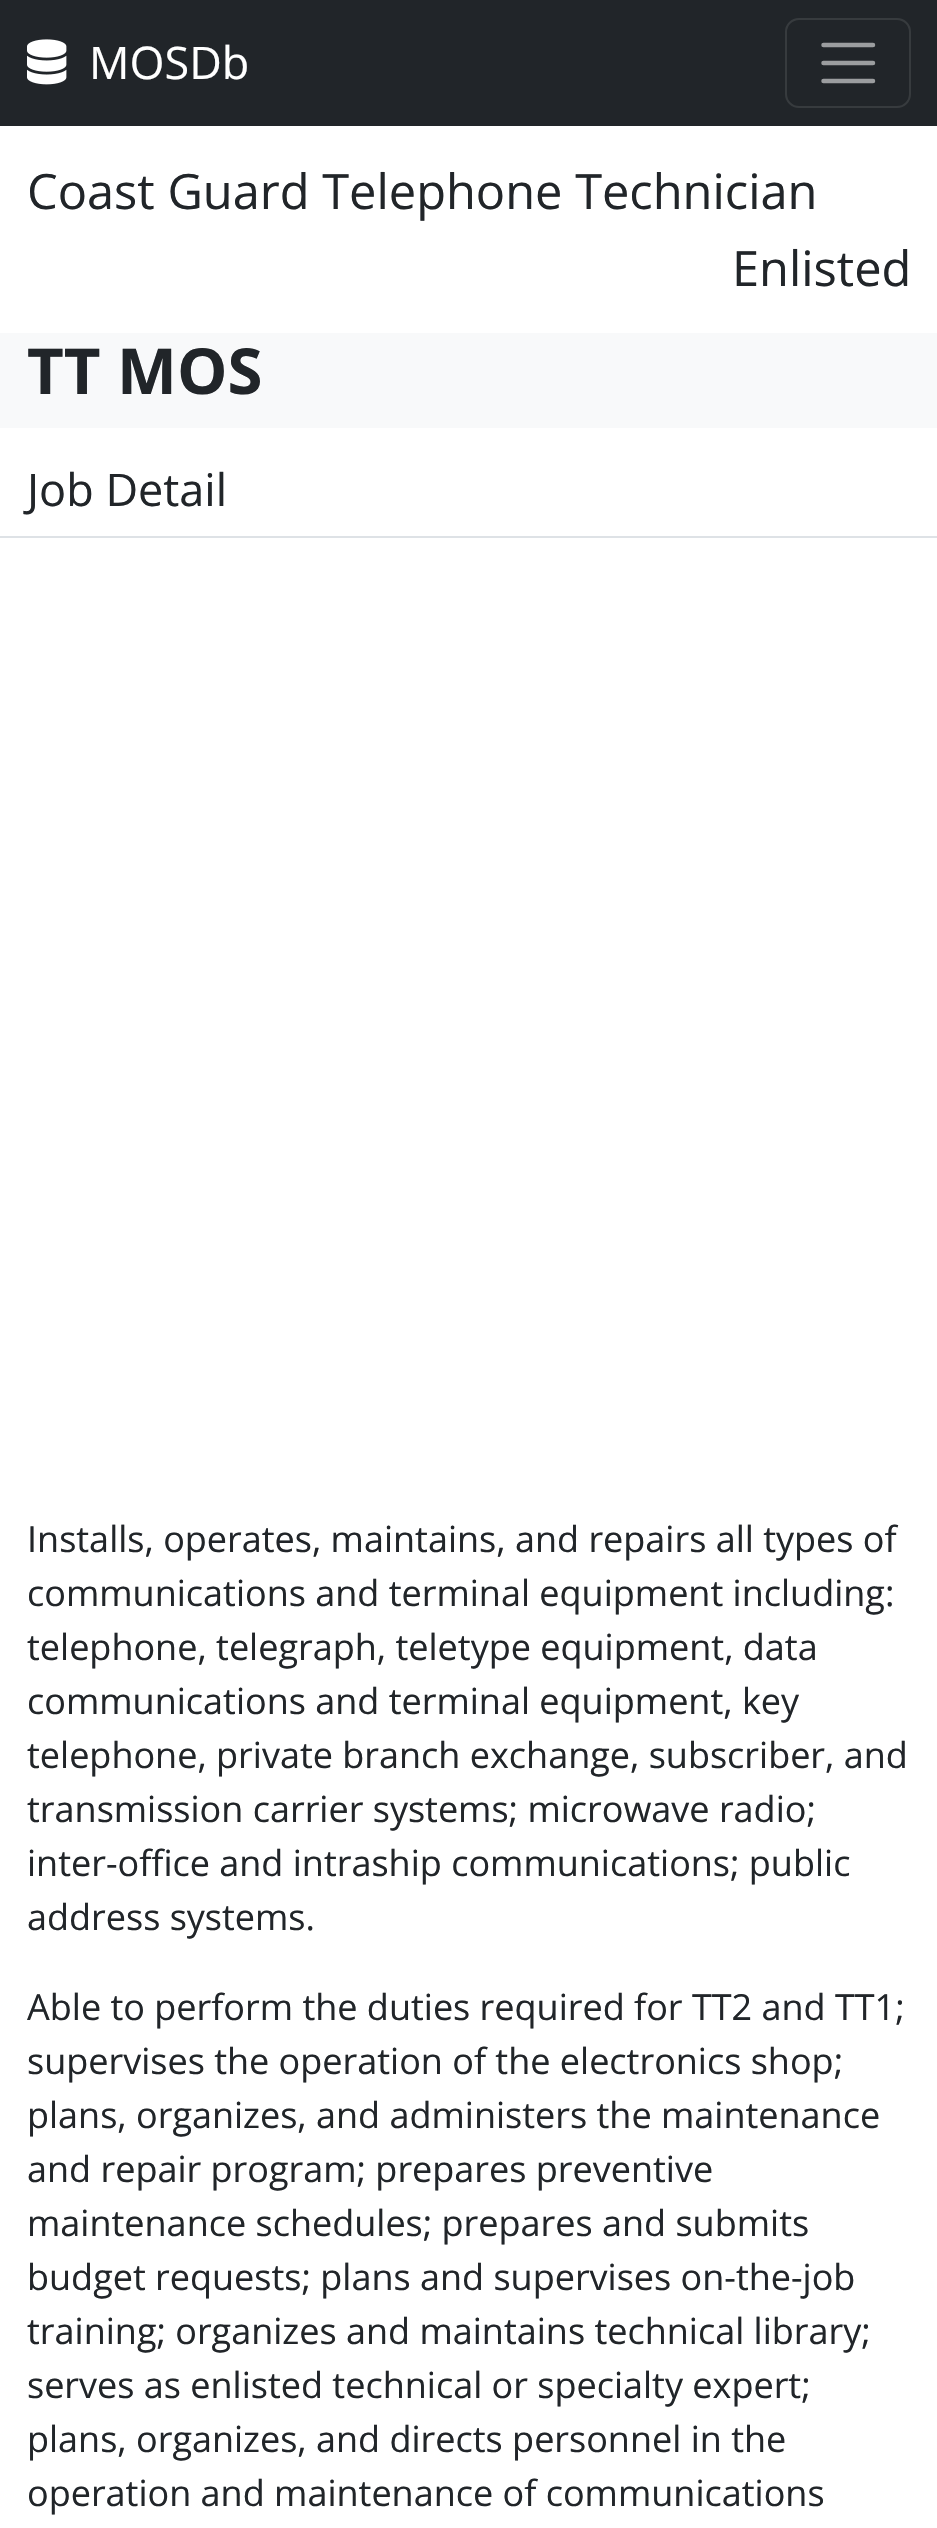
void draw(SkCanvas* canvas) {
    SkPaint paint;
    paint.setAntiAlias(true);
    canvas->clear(0xFFFFFFFF);
    paint.setColor(0xFF212529);
    canvas->drawRect(SkRect::MakeXYWH(0, 0, 937, 126), paint);
    canvas->drawImageRect(SkImages::DeferredFromEncodedData(SkData::MakeFromFileName("img1.png")), SkRect::MakeXYWH(27, 39, 40, 46), SkSamplingOptions());
    SkFont font1(fontMgr->matchFamilyStyle("Open Sans", SkFontStyle::Normal()), 45);
    font1.setSubpixel(true);
    paint.setColor(0xFFFFFFFF);
    canvas->drawString("MOSDb", 89, 79, font1, paint);
    paint.setStyle(SkPaint::kStroke_Style);
    paint.setStrokeWidth(2);
    paint.setColor(0xFF373B3E);
    canvas->drawRoundRect(SkRect::MakeXYWH(786, 19, 124, 88), 13, 13, paint);
    paint.setStrokeWidth(4.5f);
    paint.setStrokeCap(SkPaint::kRound_Cap);
    paint.setColor(0xFF9B9D9F);
    canvas->drawPath(SkPathBuilder().moveTo(823.5f, 45).lineTo(873, 45).moveTo(823.5f, 63).lineTo(873, 63).moveTo(823.5f, 81).lineTo(873, 81).detach(), paint);
    SkFont font2(fontMgr->matchFamilyStyle("Open Sans", SkFontStyle::Normal()), 48.75f);
    font2.setSubpixel(true);
    paint.setStyle(SkPaint::kFill_Style);
    paint.setColor(0xFF212529);
    canvas->drawString("Coast Guard Telephone Technician", 27, 209, font2, paint);
    canvas->drawString("Enlisted", 732, 286, font2, paint);
    paint.setColor(0xFFF8F9FA);
    canvas->drawRect(SkRect::MakeXYWH(0, 333, 937, 95), paint);
    SkFont font3(fontMgr->matchFamilyStyle("Open Sans", SkFontStyle::Bold()), 63.5f);
    font3.setSubpixel(true);
    paint.setColor(0xFF212529);
    canvas->drawString("TT MOS", 27, 394, font3, paint);
    paint.setColor(0xFFDEE2E6);
    canvas->drawRect(SkRect::MakeXYWH(0, 536, 937, 2), paint);
    paint.setColor(0xFF212529);
    canvas->drawString("Job Detail", 27, 506, font1, paint);
    SkFont font4(fontMgr->matchFamilyStyle("Open Sans", SkFontStyle::Normal()), 36);
    font4.setSubpixel(true);
    canvas->drawString("Installs, operates, maintains, and repairs all types of", 27, 1552, font4, paint);
    canvas->drawString("communications and terminal equipment including:", 27, 1606, font4, paint);
    canvas->drawString("telephone, telegraph, teletype equipment, data", 27, 1660, font4, paint);
    canvas->drawString("communications and terminal equipment, key", 27, 1714, font4, paint);
    canvas->drawString("telephone, private branch exchange, subscriber, and", 27, 1768, font4, paint);
    canvas->drawString("transmission carrier systems; microwave radio;", 27, 1822, font4, paint);
    canvas->drawString("inter-office and intraship communications; public", 27, 1876, font4, paint);
    canvas->drawString("address systems.", 27, 1930, font4, paint);
    canvas->drawString("Able to perform the duties required for TT2 and TT1;", 27, 2020, font4, paint);
    canvas->drawString("supervises the operation of the electronics shop;", 27, 2074, font4, paint);
    canvas->drawString("plans, organizes, and administers the maintenance", 27, 2128, font4, paint);
    canvas->drawString("and repair program; prepares preventive", 27, 2182, font4, paint);
    canvas->drawString("maintenance schedules; prepares and submits", 27, 2236, font4, paint);
    canvas->drawString("budget requests; plans and supervises on-the-job", 27, 2290, font4, paint);
    canvas->drawString("training; organizes and maintains technical library;", 27, 2344, font4, paint);
    canvas->drawString("serves as enlisted technical or specialty expert;", 27, 2398, font4, paint);
    canvas->drawString("plans, organizes, and directs personnel in the", 27, 2452, font4, paint);
    canvas->drawString("operation and maintenance of communications", 27, 2506, font4, paint);
}
